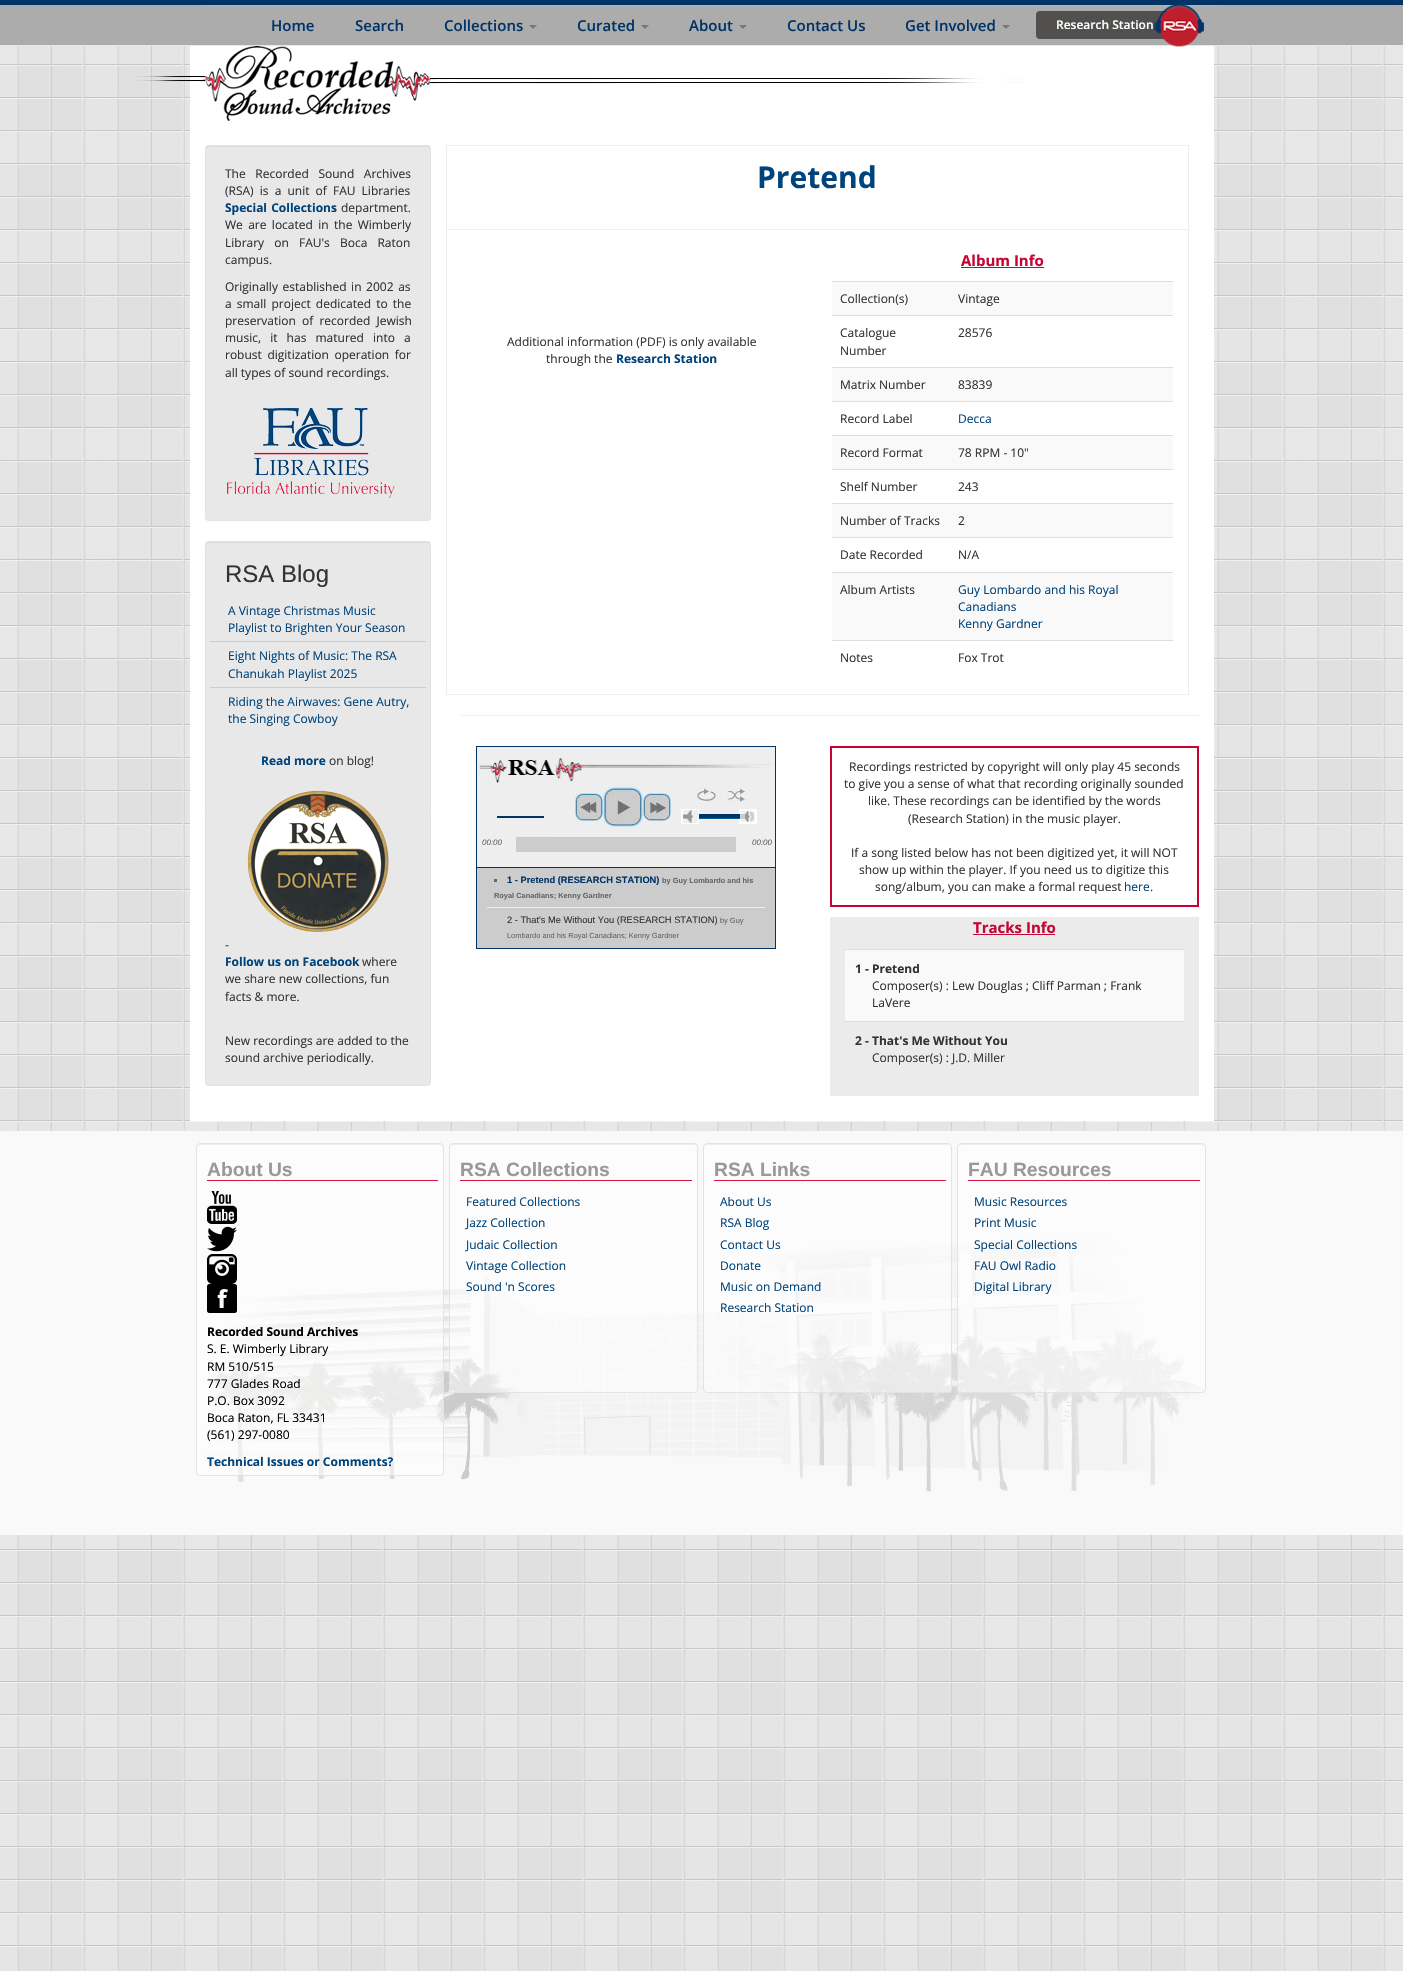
void draw(SkCanvas* canvas) {
    SkPaint paint;
    paint.setAntiAlias(true);
    auto spacedText = [&](const char* s, float x, float y, const SkFont& font, const SkPaint& ink, float letter, float word) {
        std::vector<SkGlyphID> glyphs(font.countText(s, strlen(s), SkTextEncoding::kUTF8));
        std::vector<float> xs(glyphs.size());
        font.textToGlyphs(s, strlen(s), SkTextEncoding::kUTF8, glyphs);
        font.getXPos(glyphs, xs, x);
        float extra = 0;
        for (size_t i = 0; i < glyphs.size(); i++) {
            xs[i] += extra;
            extra += letter + word * (glyphs[i] == font.unicharToGlyph(' '));
        }
        canvas->drawTextBlob(SkTextBlob::MakeFromPosHGlyphs(glyphs, xs, y, font), 0, 0, ink);
    };
    canvas->clear(0xFFFFFFFF);
    canvas->drawImageRect(SkImages::DeferredFromEncodedData(SkData::MakeFromFileName("img1.png")), SkRect::MakeXYWH(0, 46, 1403, 1925), SkSamplingOptions());
    paint.setColor(0xFFACACAC);
    canvas->drawRect(SkRect::MakeXYWH(0, 5, 1403, 40), paint);
    paint.setColor(0xFF003366);
    canvas->drawRect(SkRect::MakeXYWH(0, 0, 1403, 5), paint);
    paint.setColor(0xFFE7E7E7);
    canvas->drawRect(SkRect::MakeXYWH(0, 45, 1403, 1), paint);
    paint.setColor(0xFFB4B4B4);
    canvas->drawRect(SkRect::MakeXYWH(205, 5, 1014, 1), paint);
    SkFont font1(fontMgr->matchFamilyStyle("Open Sans", SkFontStyle(600, SkFontStyle::kNormal_Width, SkFontStyle::kUpright_Slant)), 15);
    font1.setSubpixel(true);
    paint.setColor(0xFF003366);
    canvas->drawString("Home", 271, 31, font1, paint);
    canvas->drawString("Search", 355, 31, font1, paint);
    canvas->drawString("Collections", 444, 31, font1, paint);
    paint.setColor(0xFF777777);
    canvas->drawPath(SkPathBuilder().moveTo(529, 25).lineTo(537, 25).lineTo(533, 29).close().detach(), paint);
    paint.setColor(0xFF003366);
    canvas->drawString("Curated", 577, 31, font1, paint);
    paint.setColor(0xFF777777);
    canvas->drawPath(SkPathBuilder().moveTo(641, 25).lineTo(649, 25).lineTo(645, 29).close().detach(), paint);
    paint.setColor(0xFF003366);
    canvas->drawString("About", 689, 31, font1, paint);
    paint.setColor(0xFF777777);
    canvas->drawPath(SkPathBuilder().moveTo(739, 25).lineTo(747, 25).lineTo(743, 29).close().detach(), paint);
    paint.setColor(0xFF003366);
    canvas->drawString("Contact Us", 787, 31, font1, paint);
    canvas->drawString("Get Involved", 905, 31, font1, paint);
    paint.setColor(0xFF777777);
    canvas->drawPath(SkPathBuilder().moveTo(1002, 25).lineTo(1010, 25).lineTo(1006, 29).close().detach(), paint);
    paint.setColor(0xFF51504F);
    canvas->drawRoundRect(SkRect::MakeXYWH(1036, 11, 138, 28), 4, 4, paint);
    SkFont font2(fontMgr->matchFamilyStyle("Open Sans", SkFontStyle(600, SkFontStyle::kNormal_Width, SkFontStyle::kUpright_Slant)), 12);
    font2.setSubpixel(true);
    paint.setColor(0xFFFFFFFF);
    canvas->drawString("Research Station", 1056, 29, font2, paint);
    canvas->drawRect(SkRect::MakeXYWH(190, 46, 1024, 1075), paint);
    canvas->drawImageRect(SkImages::DeferredFromEncodedData(SkData::MakeFromFileName("img2.png")), SkRect::MakeXYWH(1154, 5, 50, 42), SkSamplingOptions());
    canvas->drawImageRect(SkImages::DeferredFromEncodedData(SkData::MakeFromFileName("img3.png")), SkRect::MakeXYWH(135, 46, 889, 75), SkSamplingOptions());
    paint.setColor(0xFFE8E8E8);
    canvas->drawRoundRect(SkRect::MakeXYWH(205, 145, 226, 376), 4, 4, paint);
    paint.setColor(0xFFDCDCDC);
    canvas->drawPath(SkPathBuilder().moveTo(209, 147).lineTo(427, 147).cubicTo(429, 147, 430, 148, 430, 150).lineTo(430, 149).cubicTo(430, 147, 429, 146, 427, 146).lineTo(209, 146).cubicTo(207, 146, 206, 147, 206, 149).lineTo(206, 150).cubicTo(206, 148, 207, 147, 209, 147).close().detach(), paint);
    paint.setStyle(SkPaint::kStroke_Style);
    paint.setStrokeWidth(1);
    paint.setColor(0xFFE3E3E3);
    canvas->drawRoundRect(SkRect::MakeXYWH(205.5f, 145.5f, 225, 375), 3.5f, 3.5f, paint);
    SkFont font3(fontMgr->matchFamilyStyle("Open Sans", SkFontStyle::Normal()), 12);
    font3.setSubpixel(true);
    paint.setStyle(SkPaint::kFill_Style);
    paint.setColor(0xFF333333);
    spacedText("The Recorded Sound Archives", 225, 178, font3, paint, 0, 6.5f);
    spacedText("(RSA) is a unit of FAU Libraries", 225, 195, font3, paint, 0, 3);
    SkFont font4(fontMgr->matchFamilyStyle("Open Sans", SkFontStyle::Bold()), 12);
    font4.setSubpixel(true);
    paint.setColor(0xFF01447B);
    spacedText("Special Collections", 225, 212, font4, paint, 0, 1);
    paint.setColor(0xFF333333);
    canvas->drawString("department.", 341, 212, font3, paint);
    spacedText("We are located in the Wimberly", 225, 229, font3, paint, 0, 2.25f);
    spacedText("Library on FAU's Boca Raton", 225, 247, font3, paint, 0, 7);
    canvas->drawString("campus.", 225, 264, font3, paint);
    spacedText("Originally established in 2002 as", 225, 291, font3, paint, 0, 1.5f);
    spacedText("a small project dedicated to the", 225, 308, font3, paint, 0, 2);
    spacedText("preservation of recorded Jewish", 225, 325, font3, paint, 0, 3);
    spacedText("music, it has matured into a", 225, 342, font3, paint, 0, 6);
    spacedText("robust digitization operation for", 225, 359, font3, paint, 0, 2.5f);
    canvas->drawString("all types of sound recordings.", 225, 377, font3, paint);
    canvas->drawImageRect(SkImages::DeferredFromEncodedData(SkData::MakeFromFileName("img4.png")), SkRect::MakeXYWH(227, 408, 168, 90), SkSamplingOptions());
    paint.setColor(0xFFE8E8E8);
    canvas->drawRoundRect(SkRect::MakeXYWH(205, 541, 226, 545), 4, 4, paint);
    paint.setColor(0xFFDCDCDC);
    canvas->drawPath(SkPathBuilder().moveTo(209, 543).lineTo(427, 543).cubicTo(429, 543, 430, 544, 430, 546).lineTo(430, 545).cubicTo(430, 543, 429, 542, 427, 542).lineTo(209, 542).cubicTo(207, 542, 206, 543, 206, 545).lineTo(206, 546).cubicTo(206, 544, 207, 543, 209, 543).close().detach(), paint);
    paint.setStyle(SkPaint::kStroke_Style);
    paint.setColor(0xFFE3E3E3);
    canvas->drawRoundRect(SkRect::MakeXYWH(205.5f, 541.5f, 225, 544), 3.5f, 3.5f, paint);
    SkFont font5(fontMgr->matchFamilyStyle("Liberation Sans", SkFontStyle::Normal()), 24);
    font5.setSubpixel(true);
    paint.setStyle(SkPaint::kFill_Style);
    paint.setColor(0xFF333333);
    canvas->drawString("RSA Blog", 225, 582, font5, paint);
    paint.setColor(0xFFCCCCCC);
    canvas->drawRect(SkRect::MakeXYWH(210, 641, 216, 1), paint);
    paint.setColor(0xFF01447B);
    canvas->drawString("A Vintage Christmas Music", 228, 615, font3, paint);
    canvas->drawString("Playlist to Brighten Your Season", 228, 632, font3, paint);
    paint.setColor(0xFFCCCCCC);
    canvas->drawRect(SkRect::MakeXYWH(210, 687, 216, 1), paint);
    paint.setColor(0xFF01447B);
    canvas->drawString("Eight Nights of Music: The RSA", 228, 660, font3, paint);
    canvas->drawString("Chanukah Playlist 2025", 228, 678, font3, paint);
    canvas->drawString("Riding the Airwaves: Gene Autry,", 228, 706, font3, paint);
    canvas->drawString("the Singing Cowboy", 228, 723, font3, paint);
    canvas->drawString("Read more", 261, 765, font4, paint);
    paint.setColor(0xFF333333);
    canvas->drawString("on blog!", 329, 765, font3, paint);
    canvas->drawImageRect(SkImages::DeferredFromEncodedData(SkData::MakeFromFileName("img5.png")), SkRect::MakeXYWH(247, 790, 142, 142), SkSamplingOptions());
    canvas->drawString("-", 225, 949, font3, paint);
    paint.setColor(0xFF01447B);
    canvas->drawString("Follow us on Facebook", 225, 966, font4, paint);
    paint.setColor(0xFF333333);
    canvas->drawString("where", 362, 966, font3, paint);
    canvas->drawString("we share new collections, fun", 225, 983, font3, paint);
    canvas->drawString("facts & more.", 225, 1001, font3, paint);
    canvas->drawString("New recordings are added to the", 225, 1045, font3, paint);
    canvas->drawString("sound archive periodically.", 225, 1062, font3, paint);
    paint.setStyle(SkPaint::kStroke_Style);
    paint.setColor(0xFFEEEEEE);
    canvas->drawRect(SkRect::MakeXYWH(446.5f, 145.5f, 742, 549), paint);
    SkFont font6(fontMgr->matchFamilyStyle("Open Sans", SkFontStyle::Bold()), 30);
    font6.setSubpixel(true);
    paint.setStyle(SkPaint::kFill_Style);
    paint.setColor(0xFF01447B);
    canvas->drawString("Pretend", 757, 188, font6, paint);
    paint.setColor(0xFFEEEEEE);
    canvas->drawRect(SkRect::MakeXYWH(447, 229, 741, 1), paint);
    paint.setColor(0xFF333333);
    canvas->drawString("Additional information (PDF) is only available", 507, 346, font3, paint);
    canvas->drawString("through the", 546, 363, font3, paint);
    paint.setColor(0xFF01447B);
    canvas->drawString("Research Station", 616, 363, font4, paint);
    SkFont font7(fontMgr->matchFamilyStyle("Open Sans", SkFontStyle::Bold()), 15);
    font7.setSubpixel(true);
    paint.setColor(0xFFC60435);
    canvas->drawString("Album Info", 961, 266, font7, paint);
    canvas->drawRect(SkRect::MakeXYWH(961, 267, 83, 1), paint);
    paint.setColor(0xFFF9F9F9);
    canvas->drawRect(SkRect::MakeXYWH(832, 282, 341, 33), paint);
    paint.setColor(0xFF333333);
    canvas->drawString("Collection(s)", 840, 303, font3, paint);
    paint.setColor(0xFFDDDDDD);
    canvas->drawRect(SkRect::MakeXYWH(832, 281, 341, 1), paint);
    paint.setColor(0xFF333333);
    canvas->drawString("Vintage", 958, 303, font3, paint);
    canvas->drawString("Catalogue", 840, 337, font3, paint);
    canvas->drawString("Number", 840, 355, font3, paint);
    paint.setColor(0xFFDDDDDD);
    canvas->drawRect(SkRect::MakeXYWH(832, 315, 341, 1), paint);
    paint.setColor(0xFF333333);
    canvas->drawString("28576", 958, 337, font3, paint);
    paint.setColor(0xFFF9F9F9);
    canvas->drawRect(SkRect::MakeXYWH(832, 368, 341, 33), paint);
    paint.setColor(0xFF333333);
    canvas->drawString("Matrix Number", 840, 389, font3, paint);
    paint.setColor(0xFFDDDDDD);
    canvas->drawRect(SkRect::MakeXYWH(832, 367, 341, 1), paint);
    paint.setColor(0xFF333333);
    canvas->drawString("83839", 958, 389, font3, paint);
    canvas->drawString("Record Label", 840, 423, font3, paint);
    paint.setColor(0xFFDDDDDD);
    canvas->drawRect(SkRect::MakeXYWH(832, 401, 341, 1), paint);
    paint.setColor(0xFF01447B);
    canvas->drawString("Decca", 958, 423, font3, paint);
    paint.setColor(0xFFF9F9F9);
    canvas->drawRect(SkRect::MakeXYWH(832, 436, 341, 33), paint);
    paint.setColor(0xFF333333);
    canvas->drawString("Record Format", 840, 457, font3, paint);
    paint.setColor(0xFFDDDDDD);
    canvas->drawRect(SkRect::MakeXYWH(832, 435, 341, 1), paint);
    paint.setColor(0xFF333333);
    canvas->drawString("78 RPM - 10\"", 958, 457, font3, paint);
    canvas->drawString("Shelf Number", 840, 491, font3, paint);
    paint.setColor(0xFFDDDDDD);
    canvas->drawRect(SkRect::MakeXYWH(832, 469, 341, 1), paint);
    paint.setColor(0xFF333333);
    canvas->drawString("243", 958, 491, font3, paint);
    paint.setColor(0xFFF9F9F9);
    canvas->drawRect(SkRect::MakeXYWH(832, 504, 341, 33), paint);
    paint.setColor(0xFF333333);
    canvas->drawString("Number of Tracks", 840, 525, font3, paint);
    paint.setColor(0xFFDDDDDD);
    canvas->drawRect(SkRect::MakeXYWH(832, 503, 341, 1), paint);
    paint.setColor(0xFF333333);
    canvas->drawString("2", 958, 525, font3, paint);
    canvas->drawString("Date Recorded", 840, 559, font3, paint);
    paint.setColor(0xFFDDDDDD);
    canvas->drawRect(SkRect::MakeXYWH(832, 537, 341, 1), paint);
    paint.setColor(0xFF333333);
    canvas->drawString("N/A", 958, 559, font3, paint);
    paint.setColor(0xFFF9F9F9);
    canvas->drawRect(SkRect::MakeXYWH(832, 573, 341, 67), paint);
    paint.setColor(0xFF333333);
    canvas->drawString("Album Artists", 840, 594, font3, paint);
    paint.setColor(0xFFDDDDDD);
    canvas->drawRect(SkRect::MakeXYWH(832, 572, 341, 1), paint);
    paint.setColor(0xFF01447B);
    canvas->drawString("Guy Lombardo and his Royal", 958, 594, font3, paint);
    canvas->drawString("Canadians", 958, 611, font3, paint);
    canvas->drawString("Kenny Gardner", 958, 628, font3, paint);
    paint.setColor(0xFF333333);
    canvas->drawString("Notes", 840, 662, font3, paint);
    paint.setColor(0xFFDDDDDD);
    canvas->drawRect(SkRect::MakeXYWH(832, 640, 341, 1), paint);
    paint.setColor(0xFF333333);
    canvas->drawString("Fox Trot", 958, 662, font3, paint);
    paint.setColor(0xFFEEEEEE);
    canvas->drawRect(SkRect::MakeXYWH(461, 715, 738, 1), paint);
    canvas->drawRect(SkRect::MakeXYWH(477, 747, 298, 120), paint);
    paint.setStyle(SkPaint::kStroke_Style);
    paint.setColor(0xFF003366);
    canvas->drawRect(SkRect::MakeXYWH(476.5f, 746.5f, 299, 202), paint);
    canvas->drawImageRect(SkImages::DeferredFromEncodedData(SkData::MakeFromFileName("img6.png")), SkRect::MakeXYWH(479, 758, 293, 25), SkSamplingOptions());
    canvas->drawImageRect(SkImages::DeferredFromEncodedData(SkData::MakeFromFileName("img7.png")), SkRect::MakeXYWH(694, 786, 24, 16), SkSamplingOptions());
    canvas->drawImageRect(SkImages::DeferredFromEncodedData(SkData::MakeFromFileName("img8.png")), SkRect::MakeXYWH(724, 788, 24, 16), SkSamplingOptions());
    canvas->drawImageRect(SkImages::DeferredFromEncodedData(SkData::MakeFromFileName("img9.png")), SkRect::MakeXYWH(575, 793, 28, 28), SkSamplingOptions());
    canvas->drawImageRect(SkImages::DeferredFromEncodedData(SkData::MakeFromFileName("img10.png")), SkRect::MakeXYWH(603, 787, 40, 40), SkSamplingOptions());
    canvas->drawImageRect(SkImages::DeferredFromEncodedData(SkData::MakeFromFileName("img11.png")), SkRect::MakeXYWH(643, 793, 28, 28), SkSamplingOptions());
    canvas->drawImageRect(SkImages::DeferredFromEncodedData(SkData::MakeFromFileName("img12.png")), SkRect::MakeXYWH(681, 809, 18, 15), SkSamplingOptions());
    canvas->drawImageRect(SkImages::DeferredFromEncodedData(SkData::MakeFromFileName("img13.png")), SkRect::MakeXYWH(739, 809, 18, 15), SkSamplingOptions());
    paint.setStyle(SkPaint::kFill_Style);
    canvas->drawRect(SkRect::MakeXYWH(497, 816, 47, 2), paint);
    paint.setColor(0xFFCDCDCD);
    canvas->drawRect(SkRect::MakeXYWH(740, 814, 5, 5), paint);
    canvas->drawImageRect(SkImages::DeferredFromEncodedData(SkData::MakeFromFileName("img14.png")), SkRect::MakeXYWH(699, 814, 41, 5), SkSamplingOptions());
    canvas->drawImageRect(SkImages::DeferredFromEncodedData(SkData::MakeFromFileName("img15.png")), SkRect::MakeXYWH(516, 837, 220, 15), SkSamplingOptions());
    SkFont font8(fontMgr->matchFamilyStyle("Liberation Sans", SkFontStyle::Italic()), 8);
    font8.setSubpixel(true);
    paint.setColor(0xFF666666);
    canvas->drawString("00:00", 482, 845, font8, paint);
    canvas->drawString("00:00", 752, 845, font8, paint);
    paint.setColor(0xFFCCCCCC);
    canvas->drawRect(SkRect::MakeXYWH(477, 868, 298, 80), paint);
    paint.setColor(0xFF003366);
    canvas->drawRect(SkRect::MakeXYWH(477, 867, 298, 1), paint);
    paint.setColor(0xFFEEEEEE);
    canvas->drawRect(SkRect::MakeXYWH(487, 907, 278, 1), paint);
    paint.setColor(0xFF666666);
    canvas->drawRect(SkRect::MakeXYWH(494, 879, 3, 3), paint);
    SkFont font9(fontMgr->matchFamilyStyle("Liberation Sans", SkFontStyle::Bold()), 9.3f);
    font9.setSubpixel(true);
    paint.setColor(0xFF003366);
    canvas->drawString("1 - Pretend (RESEARCH STATION)", 507, 883, font9, paint);
    SkFont font10(fontMgr->matchFamilyStyle("Liberation Sans", SkFontStyle::Bold()), 7.4f);
    font10.setSubpixel(true);
    paint.setColor(0xFF666666);
    canvas->drawString("by Guy Lombardo and his", 662, 883, font10, paint);
    canvas->drawString("Royal Canadians; Kenny Gardner", 494, 898, font10, paint);
    SkFont font11(fontMgr->matchFamilyStyle("Liberation Sans", SkFontStyle::Normal()), 9.3f);
    font11.setSubpixel(true);
    paint.setColor(0xFF333333);
    canvas->drawString("2 - That's Me Without You (RESEARCH STATION)", 507, 923, font11, paint);
    SkFont font12(fontMgr->matchFamilyStyle("Liberation Sans", SkFontStyle::Normal()), 7.4f);
    font12.setSubpixel(true);
    paint.setColor(0xFF666666);
    canvas->drawString("by Guy", 720, 923, font12, paint);
    canvas->drawString("Lombardo and his Royal Canadians; Kenny Gardner", 507, 938, font12, paint);
    paint.setStyle(SkPaint::kStroke_Style);
    paint.setStrokeWidth(2);
    paint.setColor(0xFFC60435);
    canvas->drawRect(SkRect::MakeXYWH(831, 747, 367, 159), paint);
    paint.setStyle(SkPaint::kFill_Style);
    paint.setColor(0xFF333333);
    canvas->drawString("Recordings restricted by copyright will only play 45 seconds", 849, 771, font3, paint);
    canvas->drawString("to give you a sense of what that recording originally sounded", 844, 788, font3, paint);
    canvas->drawString("like. These recordings can be identified by the words", 868, 805, font3, paint);
    canvas->drawString("(Research Station) in the music player.", 908, 823, font3, paint);
    canvas->drawString("If a song listed below has not been digitized yet, it will NOT", 851, 857, font3, paint);
    canvas->drawString("show up within the player. If you need us to digitize this", 859, 874, font3, paint);
    canvas->drawString("song/album, you can make a formal request", 875, 891, font3, paint);
    paint.setColor(0xFF01447B);
    canvas->drawString("here", 1124, 891, font3, paint);
    paint.setColor(0xFF333333);
    canvas->drawString(".", 1150, 891, font3, paint);
    paint.setColor(0xFFEBEBEB);
    canvas->drawRect(SkRect::MakeXYWH(830, 917, 369, 179), paint);
    paint.setColor(0xFFC60435);
    canvas->drawString("Tracks Info", 973, 933, font7, paint);
    canvas->drawRect(SkRect::MakeXYWH(973, 934, 82, 1), paint);
    paint.setColor(0xFFF9F9F9);
    canvas->drawRect(SkRect::MakeXYWH(845, 950, 339, 71), paint);
    paint.setColor(0xFFDDDDDD);
    canvas->drawRect(SkRect::MakeXYWH(844, 949, 340, 1), paint);
    paint.setColor(0xFF333333);
    canvas->drawString("1 - Pretend", 855, 973, font4, paint);
    canvas->drawString("Composer(s) : Lew Douglas ; Cliff Parman ; Frank", 872, 990, font3, paint);
    canvas->drawString("LaVere", 872, 1007, font3, paint);
    paint.setColor(0xFFDDDDDD);
    canvas->drawRect(SkRect::MakeXYWH(844, 1021, 340, 1), paint);
    paint.setColor(0xFF333333);
    canvas->drawString("2 - That's Me Without You", 855, 1045, font4, paint);
    canvas->drawString("Composer(s) : J.D. Miller", 872, 1062, font3, paint);
    paint.setColor(0xFFF9F9F9);
    canvas->drawRect(SkRect::MakeXYWH(0, 1131, 1403, 404), paint);
    canvas->drawImageRect(SkImages::DeferredFromEncodedData(SkData::MakeFromFileName("img16.png")), SkRect::MakeXYWH(204, 1233, 1002, 259), SkSamplingOptions());
    paint.setColor(0x80FFFFFF);
    canvas->drawRoundRect(SkRect::MakeXYWH(196, 1143, 248, 333), 4, 4, paint);
    paint.setColor(0xFFEFEFEF);
    canvas->drawPath(SkPathBuilder().moveTo(200, 1145).lineTo(441, 1145).lineTo(443, 1146).lineTo(443, 1148).cubicTo(443, 1146, 442, 1144, 440, 1144).lineTo(200, 1144).cubicTo(198, 1144, 197, 1146, 197, 1148).cubicTo(197, 1146, 198, 1145, 200, 1145).close().detach(), paint);
    paint.setStyle(SkPaint::kStroke_Style);
    paint.setStrokeWidth(1);
    paint.setColor(0xFFE3E3E3);
    canvas->drawRoundRect(SkRect::MakeXYWH(196.5f, 1143.5f, 247, 332), 3.5f, 3.5f, paint);
    paint.setStyle(SkPaint::kFill_Style);
    paint.setColor(0xFFD31344);
    canvas->drawRect(SkRect::MakeXYWH(207, 1180, 231, 1), paint);
    SkFont font13(fontMgr->matchFamilyStyle("Liberation Sans", SkFontStyle::Bold()), 19.25f);
    font13.setSubpixel(true);
    paint.setColor(0xFF999999);
    canvas->drawString("About Us", 207, 1176, font13, paint);
    canvas->drawImageRect(SkImages::DeferredFromEncodedData(SkData::MakeFromFileName("img17.png")), SkRect::MakeXYWH(207, 1191, 30, 33), SkSamplingOptions());
    canvas->drawImageRect(SkImages::DeferredFromEncodedData(SkData::MakeFromFileName("img18.png")), SkRect::MakeXYWH(207, 1226, 30, 26), SkSamplingOptions());
    canvas->drawImageRect(SkImages::DeferredFromEncodedData(SkData::MakeFromFileName("img19.png")), SkRect::MakeXYWH(207, 1254, 30, 30), SkSamplingOptions());
    canvas->drawImageRect(SkImages::DeferredFromEncodedData(SkData::MakeFromFileName("img20.png")), SkRect::MakeXYWH(207, 1284, 30, 29), SkSamplingOptions());
    paint.setColor(0xFF000000);
    canvas->drawString("Recorded Sound Archives", 207, 1336, font4, paint);
    canvas->drawString("S. E. Wimberly Library", 207, 1353, font3, paint);
    canvas->drawString("RM 510/515", 207, 1371, font3, paint);
    canvas->drawString("777 Glades Road", 207, 1388, font3, paint);
    canvas->drawString("P.O. Box 3092", 207, 1405, font3, paint);
    canvas->drawString("Boca Raton, FL 33431", 207, 1422, font3, paint);
    canvas->drawString("(561) 297-0080", 207, 1439, font3, paint);
    paint.setColor(0xFF01447B);
    canvas->drawString("Technical Issues or Comments?", 207, 1466, font4, paint);
    paint.setColor(0x80FFFFFF);
    canvas->drawRoundRect(SkRect::MakeXYWH(449, 1143, 249, 250), 4, 4, paint);
    paint.setColor(0xFFEFEFEF);
    canvas->drawPath(SkPathBuilder().moveTo(453, 1145).lineTo(695, 1145).lineTo(697, 1146).lineTo(697, 1148).cubicTo(697, 1146, 696, 1144, 694, 1144).lineTo(453, 1144).cubicTo(451, 1144, 450, 1146, 450, 1148).cubicTo(450, 1146, 451, 1145, 453, 1145).close().detach(), paint);
    paint.setStyle(SkPaint::kStroke_Style);
    paint.setColor(0xFFE3E3E3);
    canvas->drawRoundRect(SkRect::MakeXYWH(449.5f, 1143.5f, 248, 249), 3.5f, 3.5f, paint);
    paint.setStyle(SkPaint::kFill_Style);
    paint.setColor(0xFFD31344);
    canvas->drawRect(SkRect::MakeXYWH(460, 1180, 232, 1), paint);
    paint.setColor(0xFF999999);
    canvas->drawString("RSA Collections", 460, 1176, font13, paint);
    paint.setColor(0xFF01447B);
    canvas->drawString("Featured Collections", 466, 1206, font3, paint);
    canvas->drawString("Jazz Collection", 466, 1227, font3, paint);
    canvas->drawString("Judaic Collection", 466, 1249, font3, paint);
    canvas->drawString("Vintage Collection", 466, 1270, font3, paint);
    canvas->drawString("Sound 'n Scores", 466, 1291, font3, paint);
    paint.setColor(0x80FFFFFF);
    canvas->drawRoundRect(SkRect::MakeXYWH(703, 1143, 249, 250), 4, 4, paint);
    paint.setColor(0xFFEFEFEF);
    canvas->drawPath(SkPathBuilder().moveTo(707, 1145).lineTo(949, 1145).lineTo(951, 1146).lineTo(951, 1148).cubicTo(951, 1146, 950, 1144, 948, 1144).lineTo(707, 1144).cubicTo(705, 1144, 704, 1146, 704, 1148).cubicTo(704, 1146, 705, 1145, 707, 1145).close().detach(), paint);
    paint.setStyle(SkPaint::kStroke_Style);
    paint.setColor(0xFFE3E3E3);
    canvas->drawRoundRect(SkRect::MakeXYWH(703.5f, 1143.5f, 248, 249), 3.5f, 3.5f, paint);
    paint.setStyle(SkPaint::kFill_Style);
    paint.setColor(0xFFD31344);
    canvas->drawRect(SkRect::MakeXYWH(714, 1180, 232, 1), paint);
    paint.setColor(0xFF999999);
    canvas->drawString("RSA Links", 714, 1176, font13, paint);
    paint.setColor(0xFF01447B);
    canvas->drawString("About Us", 720, 1206, font3, paint);
    canvas->drawString("RSA Blog", 720, 1227, font3, paint);
    canvas->drawString("Contact Us", 720, 1249, font3, paint);
    canvas->drawString("Donate", 720, 1270, font3, paint);
    canvas->drawString("Music on Demand", 720, 1291, font3, paint);
    canvas->drawString("Research Station", 720, 1312, font3, paint);
    paint.setColor(0x80FFFFFF);
    canvas->drawRoundRect(SkRect::MakeXYWH(957, 1143, 249, 250), 4, 4, paint);
    paint.setColor(0xFFEFEFEF);
    canvas->drawPath(SkPathBuilder().moveTo(961, 1145).lineTo(1203, 1145).lineTo(1205, 1146).lineTo(1205, 1148).cubicTo(1205, 1146, 1204, 1144, 1202, 1144).lineTo(961, 1144).cubicTo(959, 1144, 958, 1146, 958, 1148).cubicTo(958, 1146, 959, 1145, 961, 1145).close().detach(), paint);
    paint.setStyle(SkPaint::kStroke_Style);
    paint.setColor(0xFFE3E3E3);
    canvas->drawRoundRect(SkRect::MakeXYWH(957.5f, 1143.5f, 248, 249), 3.5f, 3.5f, paint);
    paint.setStyle(SkPaint::kFill_Style);
    paint.setColor(0xFFD31344);
    canvas->drawRect(SkRect::MakeXYWH(968, 1180, 232, 1), paint);
    paint.setColor(0xFF999999);
    canvas->drawString("FAU Resources", 968, 1176, font13, paint);
    paint.setColor(0xFF01447B);
    canvas->drawString("Music Resources", 974, 1206, font3, paint);
    canvas->drawString("Print Music", 974, 1227, font3, paint);
    canvas->drawString("Special Collections", 974, 1249, font3, paint);
    canvas->drawString("FAU Owl Radio", 974, 1270, font3, paint);
    canvas->drawString("Digital Library", 974, 1291, font3, paint);
}
